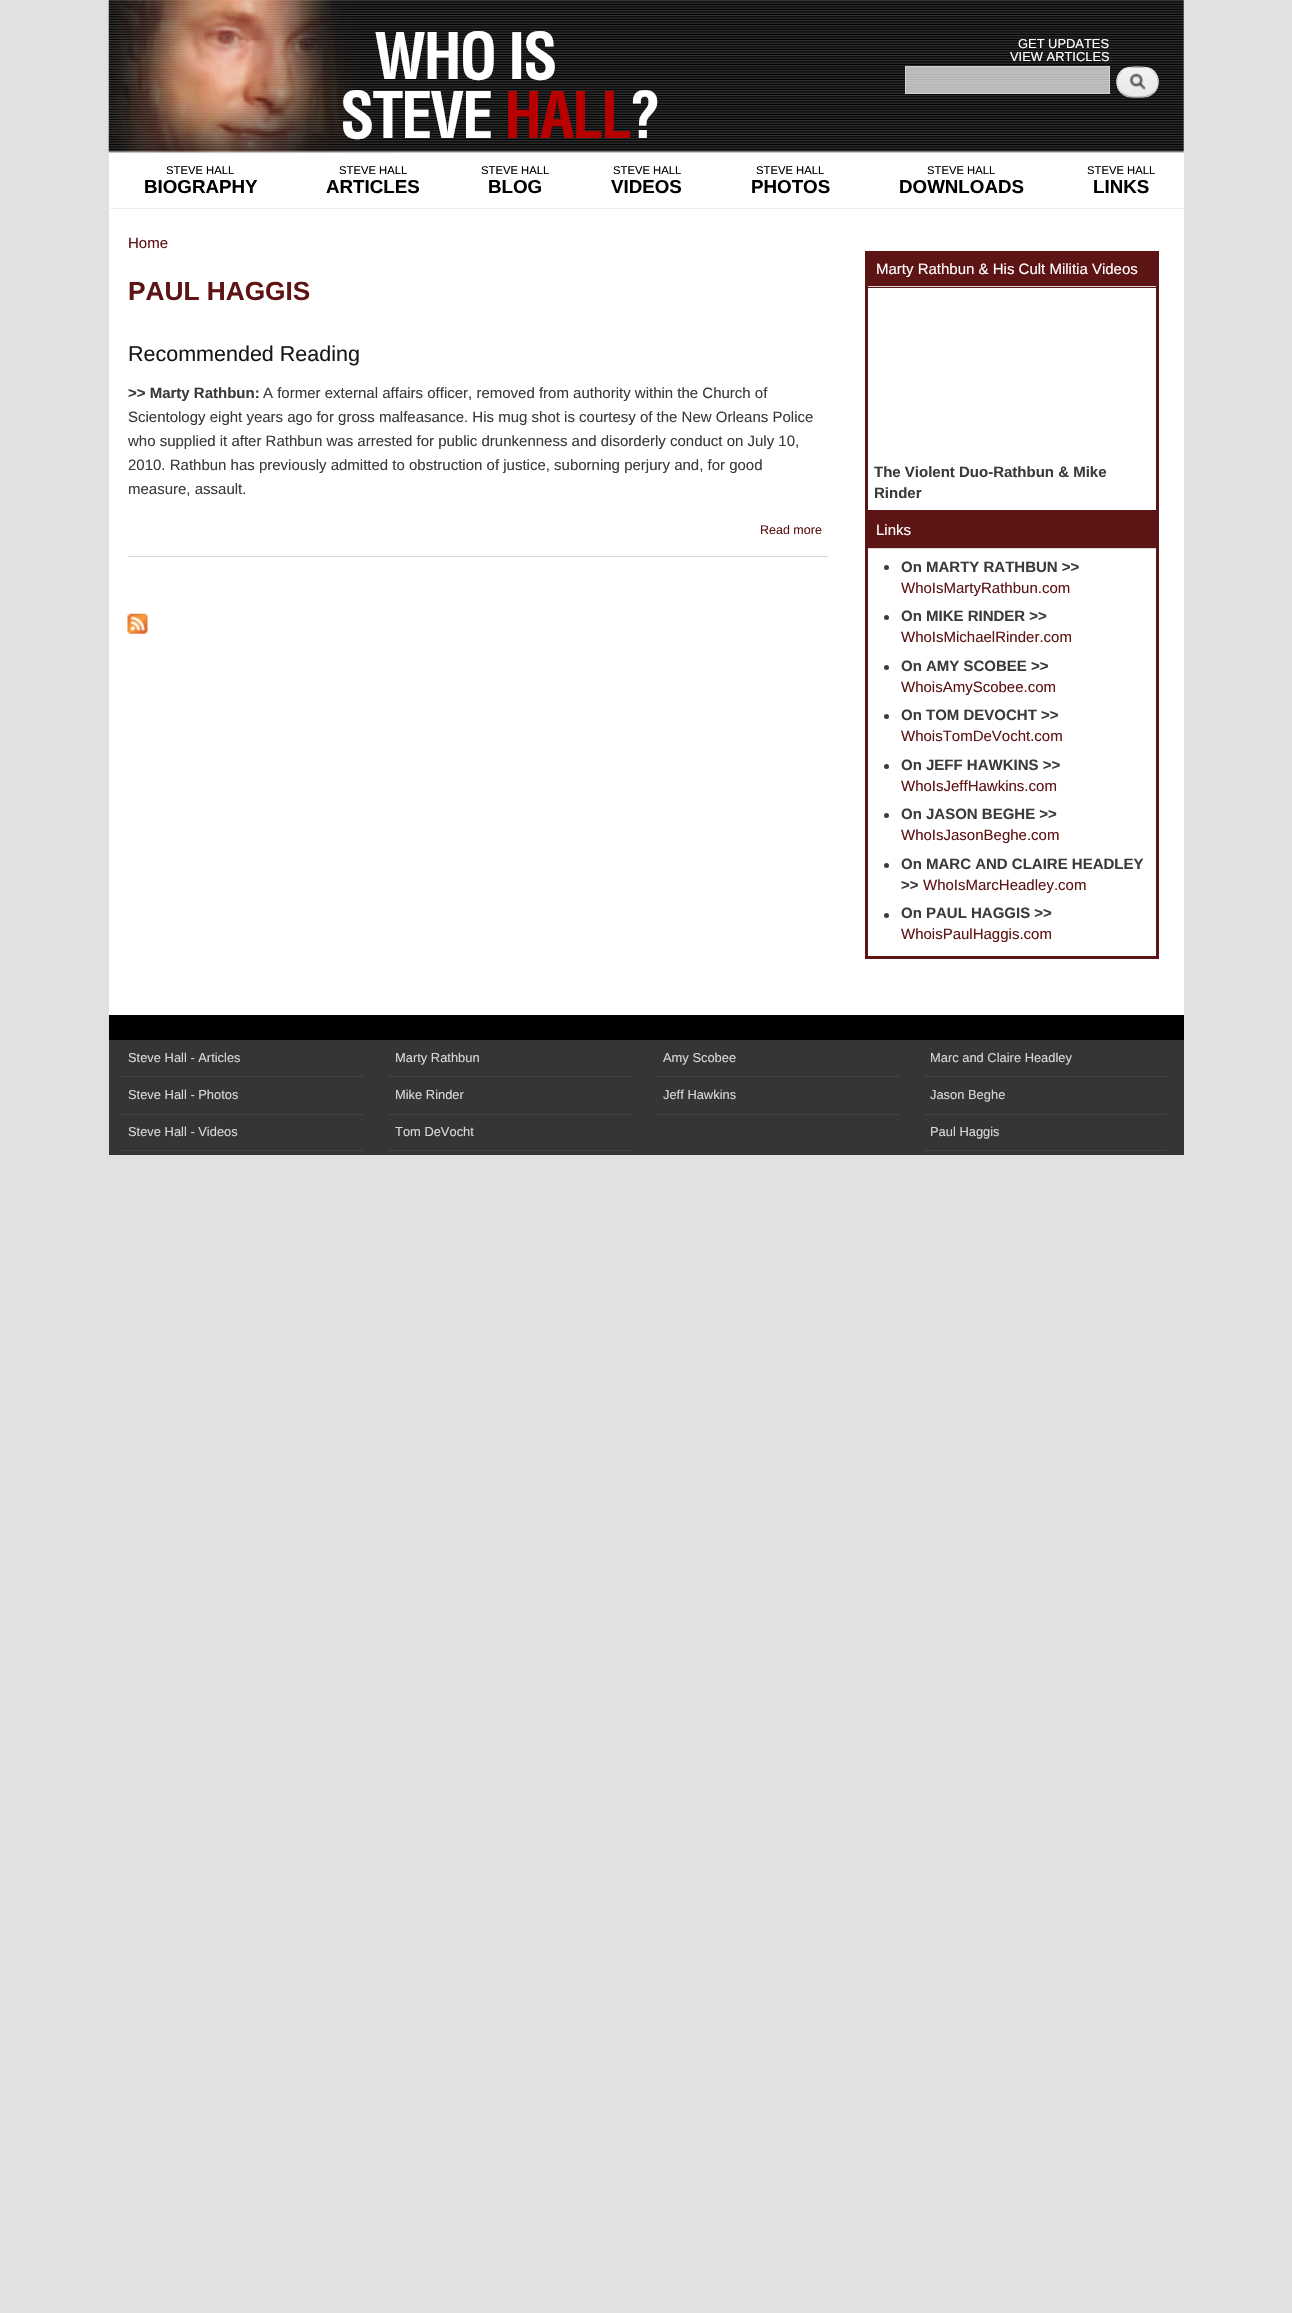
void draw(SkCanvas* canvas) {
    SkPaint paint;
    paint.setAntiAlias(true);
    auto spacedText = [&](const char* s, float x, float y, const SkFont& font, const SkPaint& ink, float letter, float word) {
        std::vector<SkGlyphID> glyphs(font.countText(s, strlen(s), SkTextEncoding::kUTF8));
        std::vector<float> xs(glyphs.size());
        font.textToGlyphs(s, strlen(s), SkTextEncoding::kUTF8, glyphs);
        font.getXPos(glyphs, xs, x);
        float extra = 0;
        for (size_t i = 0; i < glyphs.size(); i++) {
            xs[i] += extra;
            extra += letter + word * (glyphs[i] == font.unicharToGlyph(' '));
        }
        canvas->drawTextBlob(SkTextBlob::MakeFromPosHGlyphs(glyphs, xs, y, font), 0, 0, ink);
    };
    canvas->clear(0xFFE1E1E1);
    paint.setColor(0xFFFFFFFF);
    canvas->drawRect(SkRect::MakeXYWH(109, 0, 1075, 1015), paint);
    canvas->drawImageRect(SkImages::DeferredFromEncodedData(SkData::MakeFromFileName("img1.png")), SkRect::MakeXYWH(108, 0, 1076, 154), SkSamplingOptions());
    SkFont font1(fontMgr->matchFamilyStyle("Helvetica", SkFontStyle::Bold()), 62.5f);
    font1.setSubpixel(true);
    spacedText("WHO IS", 374, 79, font1, paint, -2.5f, 0);
    spacedText("STEVE", 340, 138, font1, paint, -2.5f, 0);
    paint.setColor(0xFFB90000);
    spacedText("HALL", 504, 138, font1, paint, -2.5f, 0);
    paint.setColor(0xFFFFFFFF);
    spacedText("?", 629, 138, font1, paint, -2.5f, 0);
    SkFont font2(fontMgr->matchFamilyStyle("Liberation Sans", SkFontStyle::Normal()), 12.9f);
    font2.setSubpixel(true);
    canvas->drawString("GET UPDATES", 1018, 48, font2, paint);
    canvas->drawString("VIEW ARTICLES", 1010, 61, font2, paint);
    paint.setColor(0xB3FFFFFF);
    canvas->drawRect(SkRect::MakeXYWH(905, 66, 205, 28), paint);
    paint.setStyle(SkPaint::kStroke_Style);
    paint.setStrokeWidth(1);
    paint.setColor(0x4DFFFFFF);
    canvas->drawRect(SkRect::MakeXYWH(905.5f, 66.5f, 204, 27), paint);
    canvas->drawImageRect(SkImages::DeferredFromEncodedData(SkData::MakeFromFileName("img2.png")), SkRect::MakeXYWH(1116, 67, 43, 31), SkSamplingOptions());
    paint.setStrokeWidth(1.2f);
    paint.setColor(0xFFE4E4E4);
    canvas->drawPath(SkPathBuilder().moveTo(1121.5f, 71.5f).cubicTo(1126, 66.5f, 1131.5f, 67, 1137.5f, 67).cubicTo(1143.5f, 67, 1149, 66.5f, 1153.5f, 71.5f).detach(), paint);
    paint.setColor(0xFFD2D2D2);
    canvas->drawPath(SkPathBuilder().moveTo(1153.5f, 71.5f).cubicTo(1159.5f, 77, 1159.5f, 86.5f, 1153.5f, 92.5f).detach(), paint);
    paint.setColor(0xFFB4B4B4);
    canvas->drawPath(SkPathBuilder().moveTo(1153.5f, 92.5f).cubicTo(1149, 97, 1143.5f, 97, 1137.5f, 97).cubicTo(1131.5f, 97, 1126, 97, 1121.5f, 92.5f).detach(), paint);
    paint.setColor(0xFFD2D2D2);
    canvas->drawPath(SkPathBuilder().moveTo(1121.5f, 92.5f).cubicTo(1115.5f, 86.5f, 1115.5f, 77, 1121.5f, 71.5f).detach(), paint);
    paint.setStyle(SkPaint::kFill_Style);
    paint.setColor(0xFFEEEEEE);
    canvas->drawRect(SkRect::MakeXYWH(1058, 208, 126, 1), paint);
    paint.setColor(0xFFFFFFFF);
    canvas->drawRect(SkRect::MakeXYWH(1058, 208, 1, 1), paint);
    paint.setColor(0xFFEEEEEE);
    canvas->drawRect(SkRect::MakeXYWH(864, 208, 195, 1), paint);
    paint.setColor(0xFFFFFFFF);
    canvas->drawRect(SkRect::MakeXYWH(864, 208, 1, 1), paint);
    paint.setColor(0xFFEEEEEE);
    canvas->drawRect(SkRect::MakeXYWH(716, 208, 149, 1), paint);
    paint.setColor(0xFFFFFFFF);
    canvas->drawRect(SkRect::MakeXYWH(716, 208, 1, 1), paint);
    paint.setColor(0xFFEEEEEE);
    canvas->drawRect(SkRect::MakeXYWH(576, 208, 142, 1), paint);
    paint.setColor(0xFFFFFFFF);
    canvas->drawRect(SkRect::MakeXYWH(576, 208, 1, 1), paint);
    paint.setColor(0xFFEEEEEE);
    canvas->drawRect(SkRect::MakeXYWH(454, 208, 124, 1), paint);
    paint.setColor(0xFFFFFFFF);
    canvas->drawRect(SkRect::MakeXYWH(454, 208, 1, 1), paint);
    paint.setColor(0xFFEEEEEE);
    canvas->drawRect(SkRect::MakeXYWH(291, 208, 164, 1), paint);
    paint.setColor(0xFFFFFFFF);
    canvas->drawRect(SkRect::MakeXYWH(291, 208, 1, 1), paint);
    paint.setColor(0xFFEEEEEE);
    canvas->drawRect(SkRect::MakeXYWH(109, 208, 184, 1), paint);
    paint.setColor(0xFFFFFFFF);
    canvas->drawRect(SkRect::MakeXYWH(109, 208, 1, 1), paint);
    SkFont font3(fontMgr->matchFamilyStyle("Liberation Sans", SkFontStyle::Normal()), 11.25f);
    font3.setSubpixel(true);
    paint.setColor(0xFF000000);
    canvas->drawString("STEVE HALL", 166, 174, font3, paint);
    SkFont font4(fontMgr->matchFamilyStyle("Liberation Sans", SkFontStyle::Bold()), 18.75f);
    font4.setSubpixel(true);
    canvas->drawString("BIOGRAPHY", 144, 193, font4, paint);
    canvas->drawString("STEVE HALL", 339, 174, font3, paint);
    canvas->drawString("ARTICLES", 326, 193, font4, paint);
    canvas->drawString("STEVE HALL", 481, 174, font3, paint);
    canvas->drawString("BLOG", 488, 193, font4, paint);
    canvas->drawString("STEVE HALL", 613, 174, font3, paint);
    canvas->drawString("VIDEOS", 611, 193, font4, paint);
    canvas->drawString("STEVE HALL", 756, 174, font3, paint);
    canvas->drawString("PHOTOS", 751, 193, font4, paint);
    canvas->drawString("STEVE HALL", 927, 174, font3, paint);
    canvas->drawString("DOWNLOADS", 899, 193, font4, paint);
    canvas->drawString("STEVE HALL", 1087, 174, font3, paint);
    canvas->drawString("LINKS", 1093, 193, font4, paint);
    SkFont font5(fontMgr->matchFamilyStyle("Liberation Sans", SkFontStyle::Normal()), 15);
    font5.setSubpixel(true);
    paint.setColor(0xFF5E1414);
    canvas->drawString("Home", 128, 248, font5, paint);
    SkFont font6(fontMgr->matchFamilyStyle("Liberation Sans", SkFontStyle::Bold()), 26.25f);
    font6.setSubpixel(true);
    canvas->drawString("PAUL HAGGIS", 128, 300, font6, paint);
    paint.setColor(0xFFD3D7D9);
    canvas->drawRect(SkRect::MakeXYWH(128, 556, 700, 1), paint);
    SkFont font7(fontMgr->matchFamilyStyle("Liberation Sans", SkFontStyle::Normal()), 21.5f);
    font7.setSubpixel(true);
    paint.setColor(0xFF181818);
    canvas->drawString("Recommended Reading", 128, 361, font7, paint);
    SkFont font8(fontMgr->matchFamilyStyle("Liberation Sans", SkFontStyle::Bold()), 15);
    font8.setSubpixel(true);
    paint.setColor(0xFF3B3B3B);
    canvas->drawString(">> Marty Rathbun:", 128, 398, font8, paint);
    canvas->drawString("A former external affairs officer, removed from authority within the Church of", 263, 398, font5, paint);
    canvas->drawString("Scientology eight years ago for gross malfeasance. His mug shot is courtesy of the New Orleans Police", 128, 422, font5, paint);
    canvas->drawString("who supplied it after Rathbun was arrested for public drunkenness and disorderly conduct on July 10,", 128, 446, font5, paint);
    canvas->drawString("2010. Rathbun has previously admitted to obstruction of justice, suborning perjury and, for good", 128, 470, font5, paint);
    canvas->drawString("measure, assault.", 128, 494, font5, paint);
    SkFont font9(fontMgr->matchFamilyStyle("Liberation Sans", SkFontStyle::Normal()), 12.5f);
    font9.setSubpixel(true);
    paint.setColor(0xFF5E1414);
    canvas->drawString("Read more", 760, 534, font9, paint);
    canvas->drawImageRect(SkImages::DeferredFromEncodedData(SkData::MakeFromFileName("img3.png")), SkRect::MakeXYWH(127, 613, 21, 21), SkSamplingOptions());
    paint.setStyle(SkPaint::kStroke_Style);
    paint.setStrokeWidth(3);
    paint.setColor(0xFF5D1414);
    canvas->drawRect(SkRect::MakeXYWH(866.5f, 252.5f, 291, 259), paint);
    paint.setStyle(SkPaint::kFill_Style);
    canvas->drawRect(SkRect::MakeXYWH(868, 254, 288, 34), paint);
    paint.setColor(0xFFD6D6D6);
    canvas->drawRect(SkRect::MakeXYWH(868, 286, 288, 1), paint);
    paint.setColor(0xFFFFFFFF);
    canvas->drawString("Marty Rathbun & His Cult Militia Videos", 876, 274, font5, paint);
    paint.setColor(0xFF3B3B3B);
    canvas->drawString("The Violent Duo-Rathbun & Mike", 874, 477, font8, paint);
    canvas->drawString("Rinder", 874, 498, font8, paint);
    paint.setStyle(SkPaint::kStroke_Style);
    paint.setColor(0xFF5D1414);
    canvas->drawRect(SkRect::MakeXYWH(866.5f, 514.5f, 291, 443), paint);
    paint.setStyle(SkPaint::kFill_Style);
    canvas->drawRect(SkRect::MakeXYWH(868, 516, 288, 32), paint);
    paint.setColor(0xFFD6D6D6);
    canvas->drawRect(SkRect::MakeXYWH(868, 548, 288, 1), paint);
    paint.setColor(0xFFFFFFFF);
    canvas->drawString("Links", 876, 535, font5, paint);
    paint.setColor(0xFF3B3B3B);
    canvas->drawCircle(886.5f, 567.5f, 2.5f, paint);
    canvas->drawString("On MARTY RATHBUN >>", 901, 572, font8, paint);
    paint.setColor(0xFF5E1414);
    canvas->drawString("WhoIsMartyRathbun.com", 901, 593, font5, paint);
    paint.setColor(0xFF3B3B3B);
    canvas->drawCircle(886.5f, 617.5f, 2.5f, paint);
    canvas->drawString("On MIKE RINDER >>", 901, 621, font8, paint);
    paint.setColor(0xFF5E1414);
    canvas->drawString("WhoIsMichaelRinder.com", 901, 642, font5, paint);
    paint.setColor(0xFF3B3B3B);
    canvas->drawCircle(886.5f, 667.5f, 2.5f, paint);
    canvas->drawString("On AMY SCOBEE >>", 901, 671, font8, paint);
    paint.setColor(0xFF5E1414);
    canvas->drawString("WhoisAmyScobee.com", 901, 692, font5, paint);
    paint.setColor(0xFF3B3B3B);
    canvas->drawCircle(886.5f, 716.5f, 2.5f, paint);
    canvas->drawString("On TOM DEVOCHT >>", 901, 720, font8, paint);
    paint.setColor(0xFF5E1414);
    canvas->drawString("WhoisTomDeVocht.com", 901, 741, font5, paint);
    paint.setColor(0xFF3B3B3B);
    canvas->drawCircle(886.5f, 766.5f, 2.5f, paint);
    canvas->drawString("On JEFF HAWKINS >>", 901, 770, font8, paint);
    paint.setColor(0xFF5E1414);
    canvas->drawString("WhoIsJeffHawkins.com", 901, 791, font5, paint);
    paint.setColor(0xFF3B3B3B);
    canvas->drawCircle(886.5f, 815.5f, 2.5f, paint);
    canvas->drawString("On JASON BEGHE >>", 901, 819, font8, paint);
    paint.setColor(0xFF5E1414);
    canvas->drawString("WhoIsJasonBeghe.com", 901, 840, font5, paint);
    paint.setColor(0xFF3B3B3B);
    canvas->drawCircle(886.5f, 865.5f, 2.5f, paint);
    canvas->drawString("On MARC AND CLAIRE HEADLEY", 901, 869, font8, paint);
    canvas->drawString(">>", 901, 890, font8, paint);
    paint.setColor(0xFF5E1414);
    canvas->drawString("WhoIsMarcHeadley.com", 923, 890, font5, paint);
    paint.setColor(0xFF3B3B3B);
    canvas->drawCircle(886.5f, 915.5f, 2.5f, paint);
    canvas->drawString("On PAUL HAGGIS >>", 901, 918, font8, paint);
    paint.setColor(0xFF5E1414);
    canvas->drawString("WhoisPaulHaggis.com", 901, 939, font5, paint);
    paint.setColor(0xFF353535);
    canvas->drawRect(SkRect::MakeXYWH(109, 1040, 1075, 115), paint);
    paint.setColor(0xFF000000);
    canvas->drawRect(SkRect::MakeXYWH(109, 1015, 1075, 25), paint);
    paint.setColor(0xFF444444);
    canvas->drawRect(SkRect::MakeXYWH(121, 1076, 243, 1), paint);
    paint.setColor(0xFFD7D7D7);
    canvas->drawString("Steve Hall - Articles", 128, 1062, font2, paint);
    paint.setColor(0xFF444444);
    canvas->drawRect(SkRect::MakeXYWH(121, 1114, 243, 1), paint);
    paint.setColor(0xFFD7D7D7);
    canvas->drawString("Steve Hall - Photos", 128, 1099, font2, paint);
    paint.setColor(0xFF444444);
    canvas->drawRect(SkRect::MakeXYWH(121, 1150, 243, 1), paint);
    paint.setColor(0xFFD7D7D7);
    canvas->drawString("Steve Hall - Videos", 128, 1136, font2, paint);
    paint.setColor(0xFF444444);
    canvas->drawRect(SkRect::MakeXYWH(389, 1076, 242, 1), paint);
    paint.setColor(0xFFD7D7D7);
    canvas->drawString("Marty Rathbun", 395, 1062, font2, paint);
    paint.setColor(0xFF444444);
    canvas->drawRect(SkRect::MakeXYWH(389, 1114, 242, 1), paint);
    paint.setColor(0xFFD7D7D7);
    canvas->drawString("Mike Rinder", 395, 1099, font2, paint);
    paint.setColor(0xFF444444);
    canvas->drawRect(SkRect::MakeXYWH(389, 1150, 242, 1), paint);
    paint.setColor(0xFFD7D7D7);
    canvas->drawString("Tom DeVocht", 395, 1136, font2, paint);
    paint.setColor(0xFF444444);
    canvas->drawRect(SkRect::MakeXYWH(656, 1076, 243, 1), paint);
    paint.setColor(0xFFD7D7D7);
    canvas->drawString("Amy Scobee", 663, 1062, font2, paint);
    paint.setColor(0xFF444444);
    canvas->drawRect(SkRect::MakeXYWH(656, 1114, 243, 1), paint);
    paint.setColor(0xFFD7D7D7);
    canvas->drawString("Jeff Hawkins", 663, 1099, font2, paint);
    paint.setColor(0xFF444444);
    canvas->drawRect(SkRect::MakeXYWH(924, 1076, 242, 1), paint);
    paint.setColor(0xFFD7D7D7);
    canvas->drawString("Marc and Claire Headley", 930, 1062, font2, paint);
    paint.setColor(0xFF444444);
    canvas->drawRect(SkRect::MakeXYWH(924, 1114, 242, 1), paint);
    paint.setColor(0xFFD7D7D7);
    canvas->drawString("Jason Beghe", 930, 1099, font2, paint);
    paint.setColor(0xFF444444);
    canvas->drawRect(SkRect::MakeXYWH(924, 1150, 242, 1), paint);
    paint.setColor(0xFFD7D7D7);
    canvas->drawString("Paul Haggis", 930, 1136, font2, paint);
}
